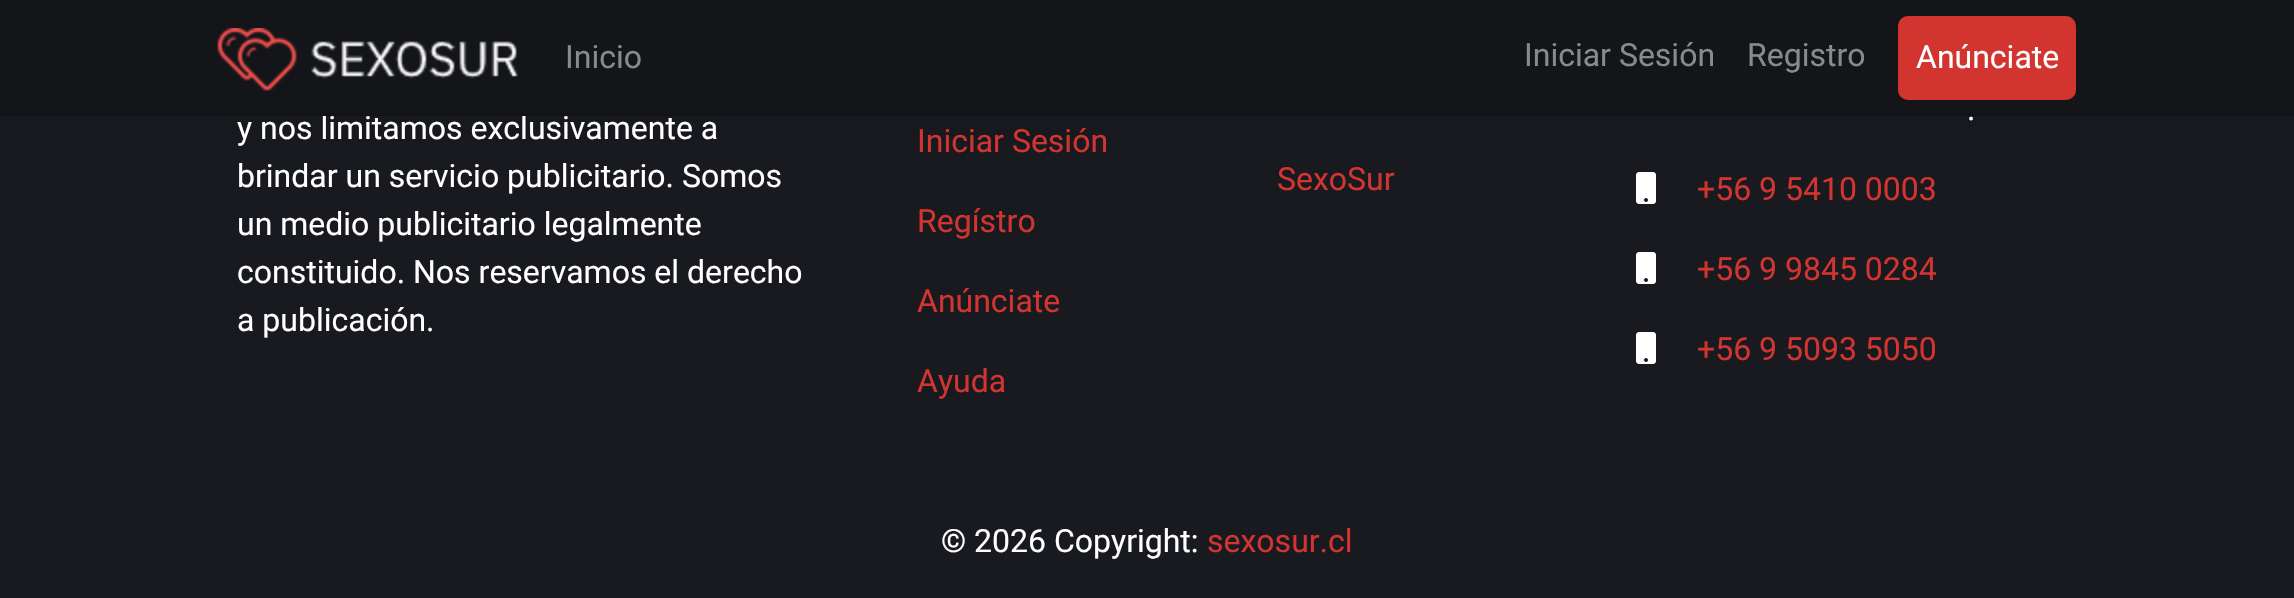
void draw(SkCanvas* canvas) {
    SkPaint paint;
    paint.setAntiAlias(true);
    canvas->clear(0xFF181A1F);
    canvas->drawImageRect(SkImages::DeferredFromEncodedData(SkData::MakeFromFileName("img2.png")), SkRect::MakeXYWH(1636, 172, 20, 32), SkSamplingOptions());
    paint.setColor(0x0D000000);
    paint.setMaskFilter(SkMaskFilter::MakeBlur(kNormal_SkBlurStyle, 16));
    canvas->drawRect(SkRect::MakeXYWH(0, 16, 2294, 116), paint);
    paint.setMaskFilter(nullptr);
    paint.setColor(0xFF131519);
    canvas->drawRect(SkRect::MakeXYWH(0, 0, 2294, 114), paint);
    SkFont font1(fontMgr->matchFamilyStyle("Roboto", SkFontStyle::Normal()), 32);
    font1.setSubpixel(true);
    paint.setColor(0xFFFFFFFF);
    canvas->drawString("y nos limitamos exclusivamente a", 237, 139, font1, paint);
    paint.setColor(0xFF111317);
    canvas->drawRect(SkRect::MakeXYWH(0, 114, 2294, 2), paint);
    canvas->drawImageRect(SkImages::DeferredFromEncodedData(SkData::MakeFromFileName("img1.png")), SkRect::MakeXYWH(217, 28, 301, 63), SkSamplingOptions());
    paint.setColor(0xFF898A8C);
    canvas->drawString("Inicio", 565, 68, font1, paint);
    canvas->drawString("Iniciar Sesión", 1524, 66, font1, paint);
    canvas->drawString("Registro", 1747, 66, font1, paint);
    paint.setColor(0xFFD23430);
    canvas->drawRoundRect(SkRect::MakeXYWH(1899, 17, 176, 82), 9, 9, paint);
    paint.setStyle(SkPaint::kStroke_Style);
    paint.setStrokeWidth(2);
    canvas->drawRoundRect(SkRect::MakeXYWH(1899, 17, 176, 82), 9, 9, paint);
    paint.setStyle(SkPaint::kFill_Style);
    paint.setColor(0xFFFFFFFF);
    canvas->drawString("Anúnciate", 1916, 68, font1, paint);
    canvas->drawString("brindar un servicio publicitario. Somos", 237, 187, font1, paint);
    canvas->drawString("un medio publicitario legalmente", 237, 235, font1, paint);
    canvas->drawString("constituido. Nos reservamos el derecho", 237, 283, font1, paint);
    canvas->drawString("a publicación.", 237, 331, font1, paint);
    paint.setColor(0xFFD23430);
    canvas->drawString("Iniciar Sesión", 917, 152, font1, paint);
    canvas->drawString("Regístro", 917, 232, font1, paint);
    canvas->drawString("Anúnciate", 917, 312, font1, paint);
    canvas->drawString("Ayuda", 917, 392, font1, paint);
    canvas->drawString("SexoSur", 1277, 190, font1, paint);
    paint.setColor(0xFFFFFFFF);
    canvas->drawString(".", 1967, 120, font1, paint);
    paint.setColor(0xFFD23430);
    canvas->drawString("+56 9 5410 0003", 1697, 200, font1, paint);
    canvas->drawImageRect(SkImages::DeferredFromEncodedData(SkData::MakeFromFileName("img2.png")), SkRect::MakeXYWH(1636, 252, 20, 32), SkSamplingOptions());
    canvas->drawString("+56 9 9845 0284", 1697, 280, font1, paint);
    canvas->drawImageRect(SkImages::DeferredFromEncodedData(SkData::MakeFromFileName("img2.png")), SkRect::MakeXYWH(1636, 332, 20, 32), SkSamplingOptions());
    canvas->drawString("+56 9 5093 5050", 1697, 360, font1, paint);
    paint.setColor(0xFFFFFFFF);
    canvas->drawString("© 2026 Copyright:", 941, 552, font1, paint);
    paint.setColor(0xFFD23430);
    canvas->drawString("sexosur.cl", 1207, 552, font1, paint);
}
